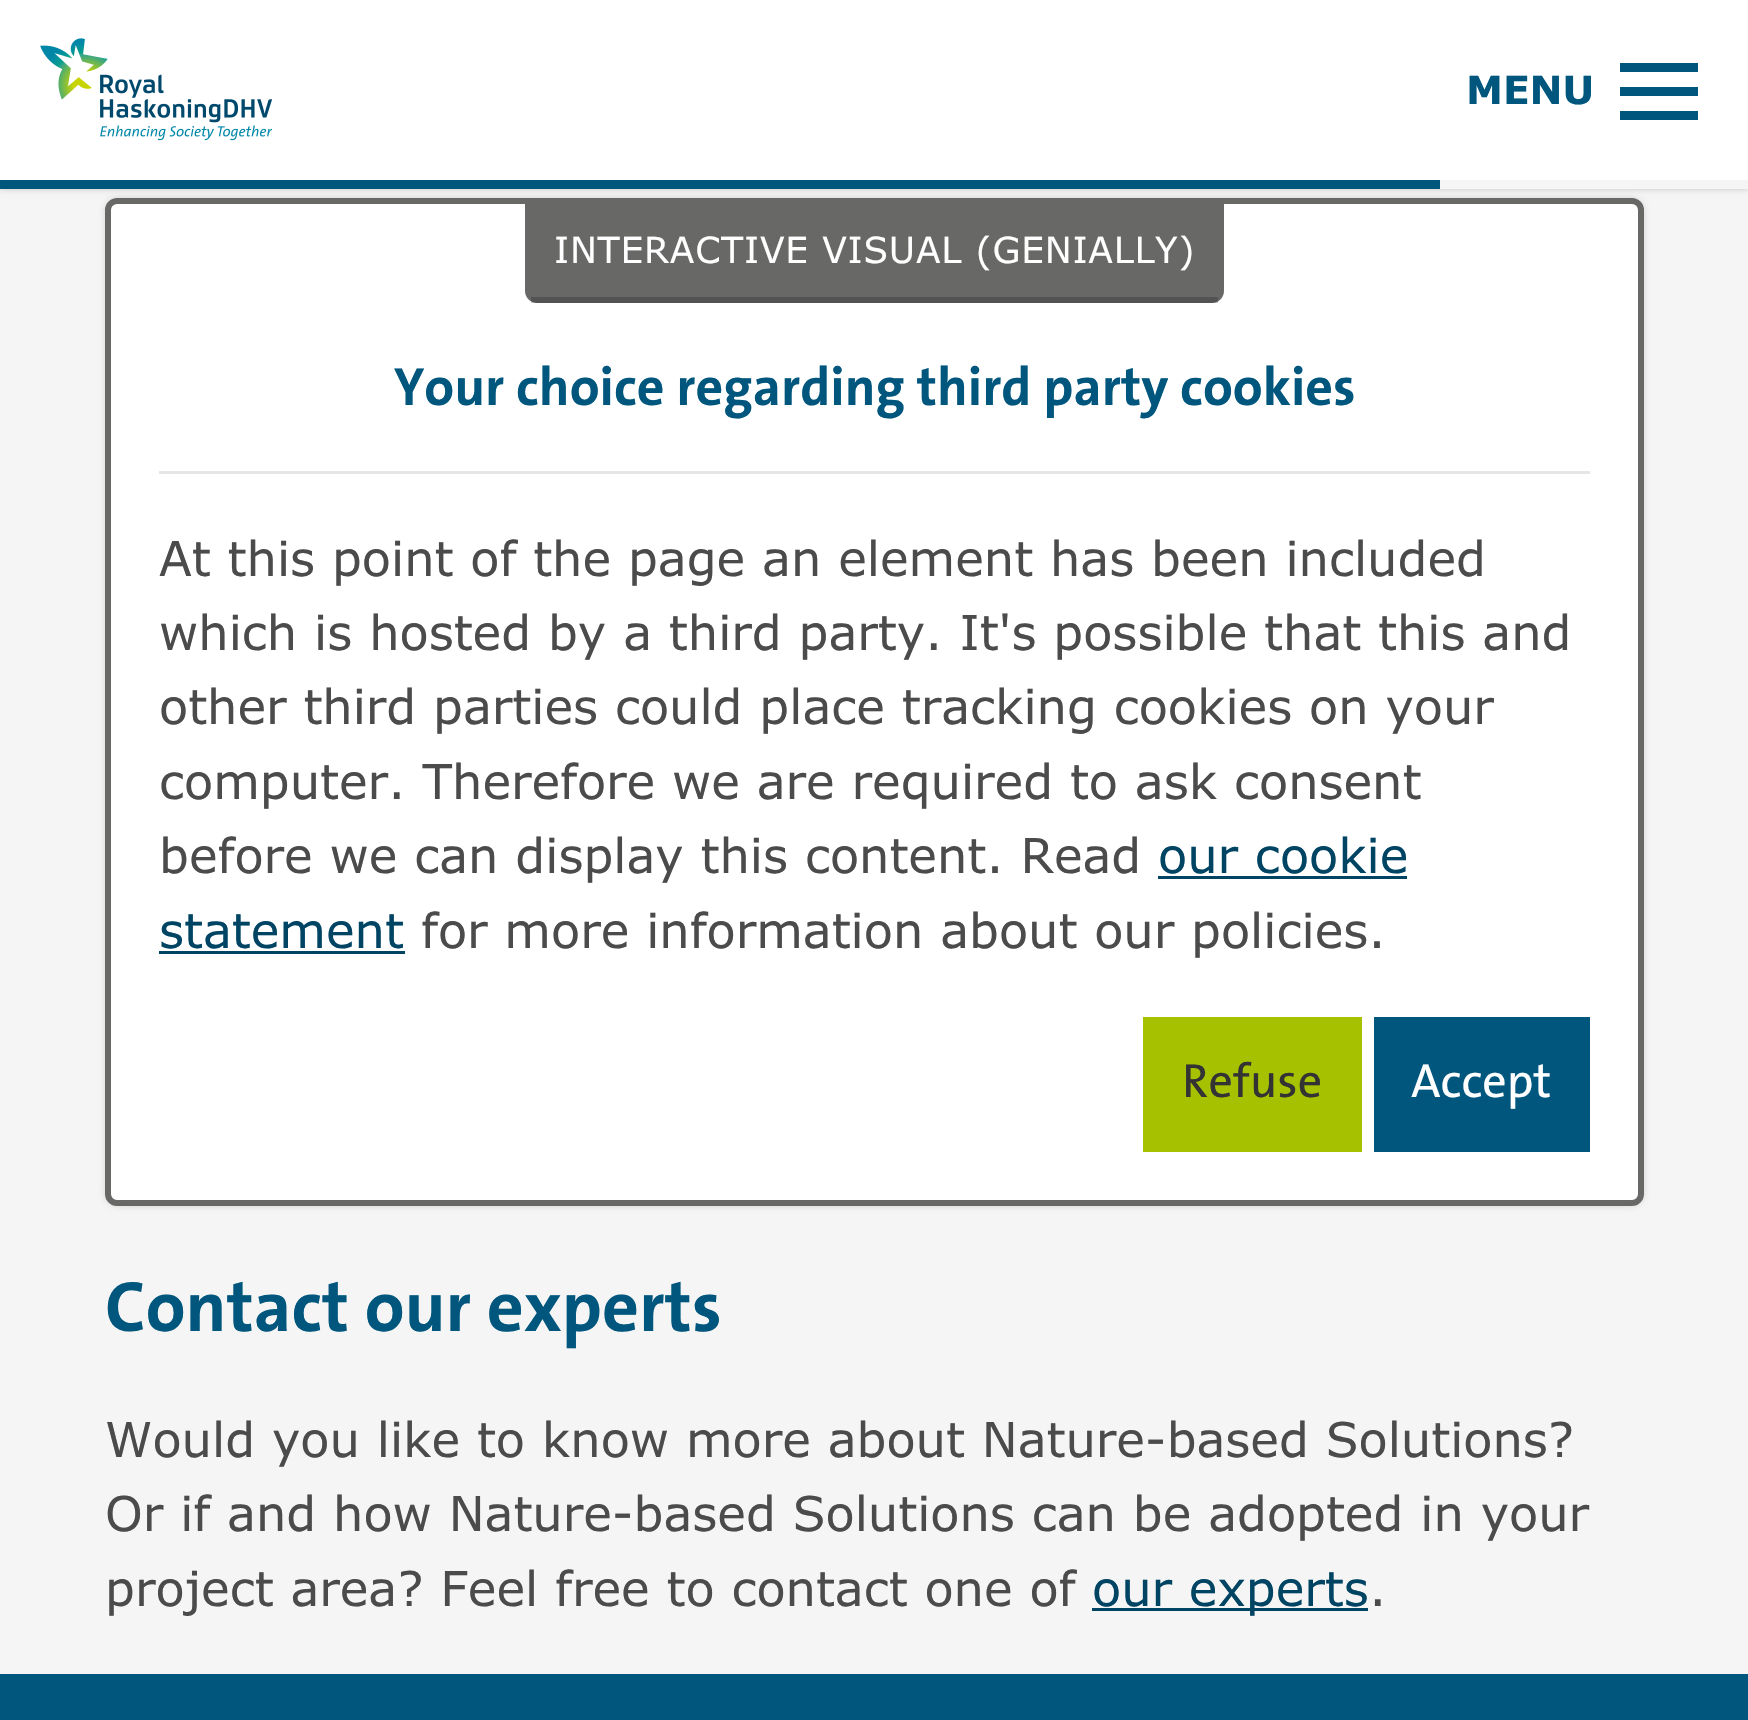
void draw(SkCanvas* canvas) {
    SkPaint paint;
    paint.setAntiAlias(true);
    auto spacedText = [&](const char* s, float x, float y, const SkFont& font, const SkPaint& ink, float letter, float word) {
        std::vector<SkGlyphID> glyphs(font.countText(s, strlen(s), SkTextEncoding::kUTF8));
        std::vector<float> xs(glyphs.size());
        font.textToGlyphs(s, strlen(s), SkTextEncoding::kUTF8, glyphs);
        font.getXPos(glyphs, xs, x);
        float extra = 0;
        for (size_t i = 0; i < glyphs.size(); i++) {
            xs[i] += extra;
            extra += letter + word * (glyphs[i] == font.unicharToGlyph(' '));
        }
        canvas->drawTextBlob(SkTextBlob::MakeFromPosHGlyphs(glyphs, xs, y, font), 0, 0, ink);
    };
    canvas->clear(0xFFF5F5F5);
    paint.setColor(0x4D000000);
    paint.setMaskFilter(SkMaskFilter::MakeBlur(kNormal_SkBlurStyle, 4.5f));
    canvas->drawRoundRect(SkRect::MakeXYWH(108, 201, 1533, 1002), 9, 9, paint);
    paint.setMaskFilter(nullptr);
    paint.setColor(0xFFFFFFFF);
    canvas->drawRoundRect(SkRect::MakeXYWH(108, 201, 1533, 1002), 9, 9, paint);
    paint.setStyle(SkPaint::kStroke_Style);
    paint.setStrokeWidth(6);
    paint.setColor(0xFF686867);
    canvas->drawRoundRect(SkRect::MakeXYWH(108, 201, 1533, 1002), 9, 9, paint);
    paint.setStyle(SkPaint::kFill_Style);
    paint.setColor(0x33000000);
    paint.setMaskFilter(SkMaskFilter::MakeBlur(kNormal_SkBlurStyle, 3));
    canvas->drawRect(SkRect::MakeXYWH(0, 0, 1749, 189), paint);
    paint.setMaskFilter(nullptr);
    paint.setColor(0xFFFFFFFF);
    canvas->drawRect(SkRect::MakeXYWH(0, 0, 1748, 180), paint);
    canvas->drawImageRect(SkImages::DeferredFromEncodedData(SkData::MakeFromFileName("img1.png")), SkRect::MakeXYWH(40, 38, 233, 103), SkSamplingOptions());
    SkFont font1(fontMgr->matchFamilyStyle("Verdana", SkFontStyle::Bold()), 39);
    font1.setSubpixel(true);
    paint.setColor(0xFF00567D);
    canvas->drawString("MENU", 1466, 104, font1, paint);
    canvas->drawRect(SkRect::MakeXYWH(1620, 63, 78, 9), paint);
    canvas->drawRect(SkRect::MakeXYWH(1620, 87, 78, 9), paint);
    canvas->drawRect(SkRect::MakeXYWH(1620, 111, 78, 9), paint);
    paint.setColor(0xFFF5F5F5);
    canvas->drawRect(SkRect::MakeXYWH(1440, 180, 308, 9), paint);
    paint.setColor(0xFF00567D);
    canvas->drawRect(SkRect::MakeXYWH(0, 180, 1440, 9), paint);
    paint.setColor(0xFF686867);
    canvas->drawPath(SkPathBuilder().moveTo(525, 204).lineTo(1224, 204).lineTo(1224, 291).cubicTo(1224, 297.5f, 1218.5f, 303, 1212, 303).lineTo(537, 303).cubicTo(530.5f, 303, 525, 297.5f, 525, 291).close().detach(), paint);
    paint.setColor(0x33000000);
    canvas->drawRect(SkRect::MakeXYWH(531, 297, 687, 6), paint);
    SkFont font2(fontMgr->matchFamilyStyle("Verdana", SkFontStyle::Normal()), 36);
    font2.setSubpixel(true);
    paint.setColor(0xFFFFFFFF);
    spacedText("INTERACTIVE VISUAL (GENIALLY)", 554, 263, font2, paint, 0.75f, 0);
    paint.setColor(0xFFE6E6E6);
    canvas->drawRect(SkRect::MakeXYWH(159, 471, 1431, 3), paint);
    SkFont font3(fontMgr->matchFamilyStyle("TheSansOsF", SkFontStyle::Bold()), 54);
    font3.setSubpixel(true);
    paint.setColor(0xFF00567D);
    canvas->drawString("Your choice regarding third party cookies", 394, 405, font3, paint);
    SkFont font4(fontMgr->matchFamilyStyle("Verdana", SkFontStyle::Normal()), 48);
    font4.setSubpixel(true);
    paint.setColor(0xFF4B4B4B);
    canvas->drawString("At this point of the page an element has been included", 159, 576, font4, paint);
    canvas->drawString("which is hosted by a third party. It's possible that this and", 159, 650, font4, paint);
    canvas->drawString("other third parties could place tracking cookies on your", 159, 724, font4, paint);
    canvas->drawString("computer. Therefore we are required to ask consent", 159, 799, font4, paint);
    canvas->drawString("before we can display this content. Read", 159, 873, font4, paint);
    paint.setColor(0xFF004464);
    canvas->drawString("our cookie", 1158, 873, font4, paint);
    canvas->drawRect(SkRect::MakeXYWH(1158, 876, 249, 3), paint);
    canvas->drawString("statement", 159, 948, font4, paint);
    canvas->drawRect(SkRect::MakeXYWH(159, 951, 246, 3), paint);
    paint.setColor(0xFF4B4B4B);
    canvas->drawString("for more information about our policies.", 421, 948, font4, paint);
    paint.setColor(0xFFA5C100);
    canvas->drawRect(SkRect::MakeXYWH(1143, 1017, 219, 135), paint);
    SkFont font5(fontMgr->matchFamilyStyle("TheSansOsF", SkFontStyle(500, SkFontStyle::kNormal_Width, SkFontStyle::kUpright_Slant)), 48);
    font5.setSubpixel(true);
    paint.setColor(0xFF333333);
    canvas->drawString("Refuse", 1182, 1097, font5, paint);
    paint.setColor(0xFF00567D);
    canvas->drawRect(SkRect::MakeXYWH(1374, 1017, 216, 135), paint);
    paint.setColor(0xFFFFFFFF);
    canvas->drawString("Accept", 1411, 1097, font5, paint);
    SkFont font6(fontMgr->matchFamilyStyle("TheSansOsF", SkFontStyle::Bold()), 72);
    font6.setSubpixel(true);
    paint.setColor(0xFF00567D);
    canvas->drawString("Contact our experts", 105, 1331, font6, paint);
    paint.setColor(0xFF4B4B4B);
    canvas->drawString("Would you like to know more about Nature-based Solutions?", 105, 1457, font4, paint);
    canvas->drawString("Or if and how Nature-based Solutions can be adopted in your", 105, 1531, font4, paint);
    canvas->drawString("project area? Feel free to contact one of", 105, 1606, font4, paint);
    paint.setColor(0xFF004464);
    canvas->drawRect(SkRect::MakeXYWH(1092, 1608, 276, 3), paint);
    canvas->drawString("our experts", 1092, 1606, font4, paint);
    paint.setColor(0xFF4B4B4B);
    canvas->drawString(".", 1369, 1606, font4, paint);
    paint.setColor(0xFF00567D);
    canvas->drawRect(SkRect::MakeXYWH(0, 1674, 1748, 46), paint);
}
